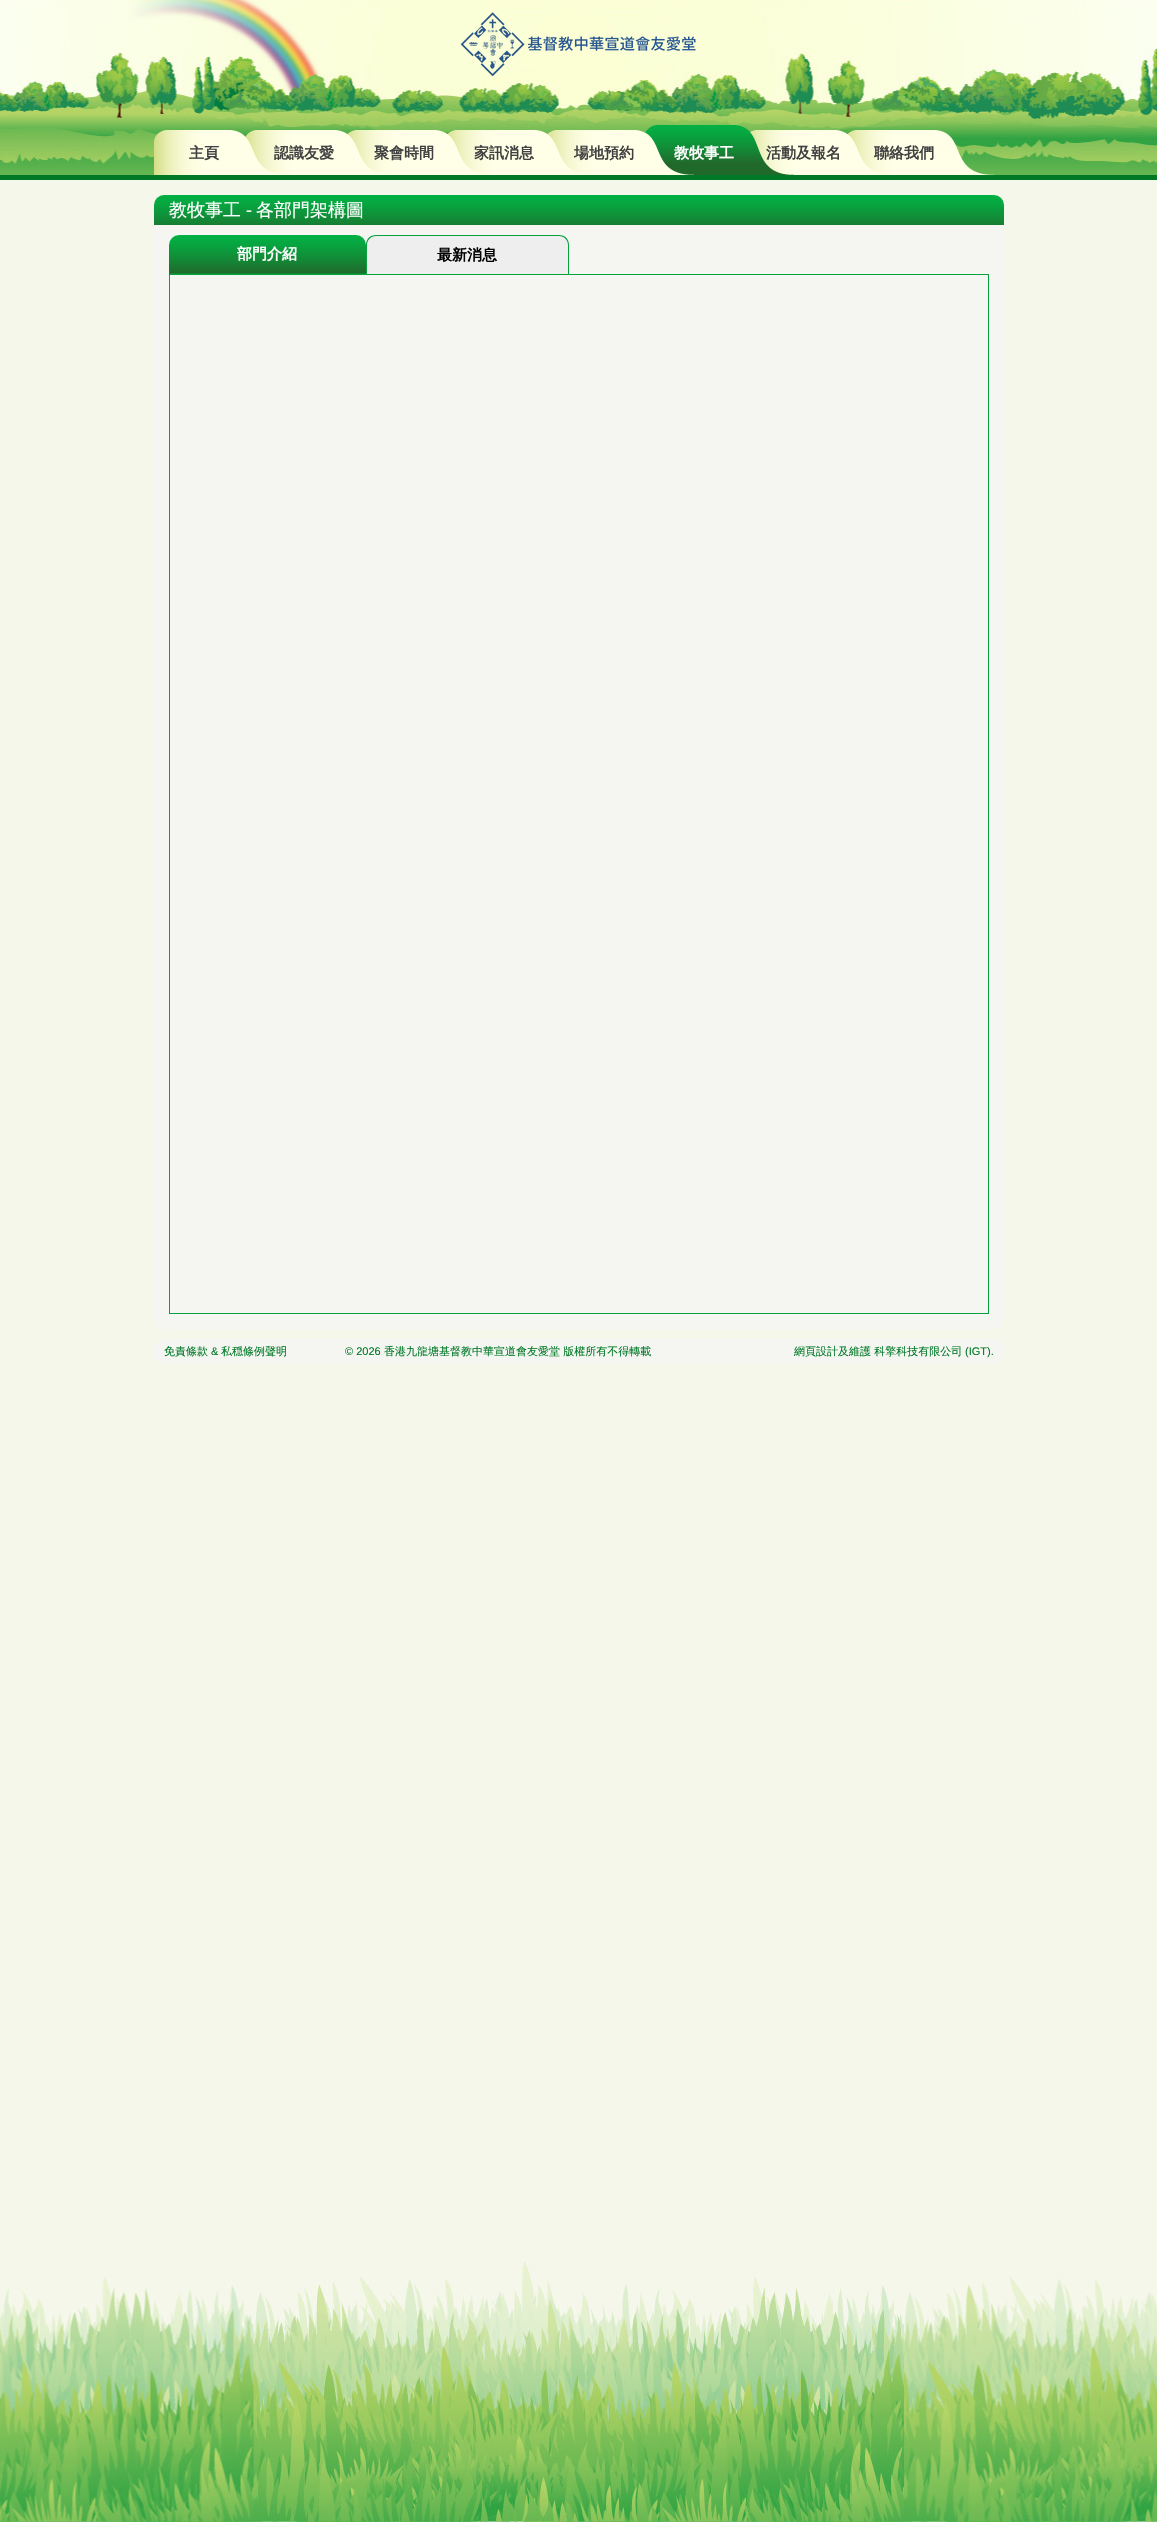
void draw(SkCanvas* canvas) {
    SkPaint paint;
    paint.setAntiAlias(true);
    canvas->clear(0xFFF5F7EA);
    canvas->drawImageRect(SkImages::DeferredFromEncodedData(SkData::MakeFromFileName("img1.png")), SkRect::MakeXYWH(0, 0, 1157, 175), SkSamplingOptions());
    paint.setColor(0xFF007926);
    canvas->drawRect(SkRect::MakeXYWH(0, 175, 1157, 5), paint);
    canvas->drawImageRect(SkImages::DeferredFromEncodedData(SkData::MakeFromFileName("img2.png")), SkRect::MakeXYWH(460, 12, 236, 65), SkSamplingOptions());
    canvas->drawImageRect(SkImages::DeferredFromEncodedData(SkData::MakeFromFileName("img3.png")), SkRect::MakeXYWH(154, 125, 840, 50), SkSamplingOptions());
    SkFont font1(fontMgr->matchFamilyStyle("WenQuanYi Zen Hei", SkFontStyle::Bold()), 15);
    font1.setSubpixel(true);
    paint.setColor(0xFF404040);
    canvas->drawString("主頁", 189, 158, font1, paint);
    canvas->drawString("認識友愛", 274, 158, font1, paint);
    canvas->drawString("聚會時間", 374, 158, font1, paint);
    canvas->drawString("家訊消息", 474, 158, font1, paint);
    canvas->drawString("場地預約", 574, 158, font1, paint);
    paint.setColor(0xFFFFFFFF);
    canvas->drawString("教牧事工", 674, 158, font1, paint);
    paint.setColor(0xFF404040);
    canvas->drawString("活動及報名", 766, 158, font1, paint);
    canvas->drawString("聯絡我們", 874, 158, font1, paint);
    canvas->drawImageRect(SkImages::DeferredFromEncodedData(SkData::MakeFromFileName("img4.png")), SkRect::MakeXYWH(154, 195, 850, 1134), SkSamplingOptions());
    canvas->drawImageRect(SkImages::DeferredFromEncodedData(SkData::MakeFromFileName("img5.png")), SkRect::MakeXYWH(154, 195, 850, 30), SkSamplingOptions());
    SkFont font2(fontMgr->matchFamilyStyle("WenQuanYi Zen Hei", SkFontStyle(500, SkFontStyle::kNormal_Width, SkFontStyle::kUpright_Slant)), 18);
    font2.setSubpixel(true);
    paint.setColor(0xFFFFFFFF);
    canvas->drawString("教牧事工", 169, 216, font2, paint);
    SkFont font3(fontMgr->matchFamilyStyle("Liberation Sans", SkFontStyle::Normal()), 18);
    font3.setSubpixel(true);
    canvas->drawString("-", 246, 216, font3, paint);
    canvas->drawString("各部門架構圖", 256, 216, font2, paint);
    canvas->drawImageRect(SkImages::DeferredFromEncodedData(SkData::MakeFromFileName("img6.png")), SkRect::MakeXYWH(169, 235, 197, 38), SkSamplingOptions());
    paint.setColor(0xFF138635);
    canvas->drawRect(SkRect::MakeXYWH(169, 273, 197, 1), paint);
    paint.setColor(0xFFFFFFFF);
    canvas->drawString("部門介紹", 237, 259, font1, paint);
    paint.setColor(0xFFEEEEEE);
    canvas->drawPath(SkPathBuilder().moveTo(376, 236).lineTo(559, 236).cubicTo(564, 236, 568, 240, 568, 245).lineTo(568, 274).lineTo(367, 274).lineTo(367, 245).cubicTo(367, 240, 371, 236, 376, 236).close().detach(), paint);
    paint.setColor(0xFF07A13E);
    canvas->drawPath(SkPathBuilder(SkPathFillType::kEvenOdd).moveTo(376, 235).lineTo(559, 235).cubicTo(565, 235, 569, 239, 569, 245).lineTo(569, 274).lineTo(366, 274).lineTo(366, 245).cubicTo(366, 239, 370, 235, 376, 235).close().moveTo(376, 236).lineTo(559, 236).cubicTo(564, 236, 568, 240, 568, 245).lineTo(568, 274).lineTo(367, 274).lineTo(367, 245).cubicTo(367, 240, 371, 236, 376, 236).close().detach(), paint);
    paint.setColor(0xFF000000);
    canvas->drawString("最新消息", 437, 260, font1, paint);
    paint.setStyle(SkPaint::kStroke_Style);
    paint.setStrokeWidth(1);
    paint.setColor(0xFF07A13E);
    canvas->drawRect(SkRect::MakeXYWH(169.5f, 274.5f, 819, 1039), paint);
    canvas->drawImageRect(SkImages::DeferredFromEncodedData(SkData::MakeFromFileName("img7.png")), SkRect::MakeXYWH(154, 1339, 850, 25), SkSamplingOptions());
    SkFont font4(fontMgr->matchFamilyStyle("WenQuanYi Zen Hei", SkFontStyle(500, SkFontStyle::kNormal_Width, SkFontStyle::kUpright_Slant)), 11);
    font4.setSubpixel(true);
    paint.setStyle(SkPaint::kFill_Style);
    paint.setColor(0xFF007926);
    canvas->drawString("免責條款", 164, 1355, font4, paint);
    SkFont font5(fontMgr->matchFamilyStyle("Liberation Sans", SkFontStyle::Normal()), 11);
    font5.setSubpixel(true);
    canvas->drawString("&", 211, 1355, font5, paint);
    canvas->drawString("私穏條例聲明", 221, 1355, font4, paint);
    canvas->drawString("© 2026", 345, 1355, font5, paint);
    canvas->drawString("香港九龍塘基督教中華宣道會友愛堂 版權所有不得轉載", 384, 1355, font4, paint);
    canvas->drawString("網頁設計及維護 科擎科技有限公司", 794, 1355, font4, paint);
    canvas->drawString("(IGT).", 965, 1355, font5, paint);
    canvas->drawImageRect(SkImages::DeferredFromEncodedData(SkData::MakeFromFileName("img8.png")), SkRect::MakeXYWH(0, 2261, 1157, 261), SkSamplingOptions());
    canvas->drawImageRect(SkImages::DeferredFromEncodedData(SkData::MakeFromFileName("img9.png")), SkRect::MakeXYWH(254, 2262, 650, 260), SkSamplingOptions());
}
